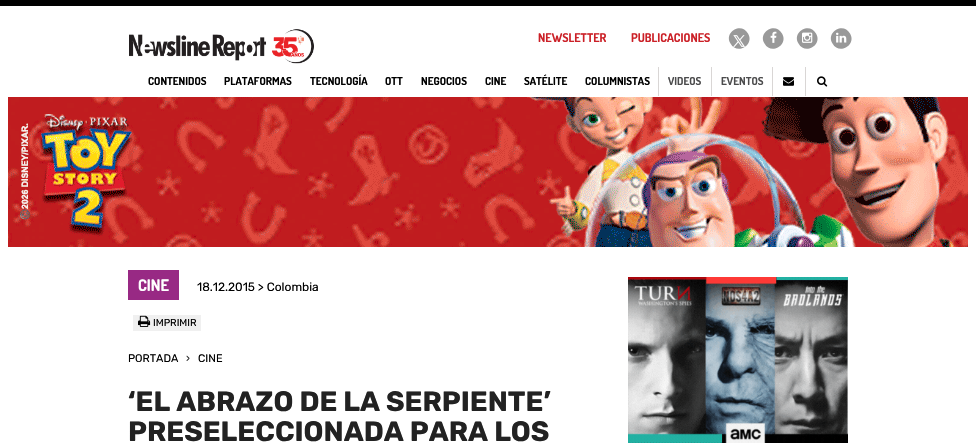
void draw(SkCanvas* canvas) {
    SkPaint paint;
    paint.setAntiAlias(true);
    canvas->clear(0xFFFFFFFF);
    paint.setColor(0xFF010101);
    canvas->drawRect(SkRect::MakeXYWH(0, 0, 976, 6), paint);
    canvas->drawImageRect(SkImages::DeferredFromEncodedData(SkData::MakeFromFileName("img1.png")), SkRect::MakeXYWH(129, 29, 185, 35), SkSamplingOptions());
    SkFont font1(fontMgr->matchFamilyStyle("Dosis", SkFontStyle::Bold()), 12);
    font1.setSubpixel(true);
    paint.setColor(0xFFCB2027);
    canvas->drawString("NEWSLETTER", 538, 42, font1, paint);
    canvas->drawString("PUBLICACIONES", 631, 42, font1, paint);
    paint.setColor(0xFF999999);
    canvas->drawPath(SkPathBuilder().moveTo(748, 33.5f).cubicTo(755, 45, 737, 55.5f, 730.5f, 43.5f).cubicTo(723.5f, 32, 741.5f, 21.5f, 748, 33.5f).close().detach(), paint);
    canvas->drawImageRect(SkImages::DeferredFromEncodedData(SkData::MakeFromFileName("img2.png")), SkRect::MakeXYWH(733, 35, 12, 12), SkSamplingOptions());
    canvas->drawPath(SkPathBuilder().moveTo(782, 33.5f).cubicTo(789, 45, 771, 55.5f, 764.5f, 43.5f).cubicTo(757.5f, 32, 775.5f, 21.5f, 782, 33.5f).close().detach(), paint);
    canvas->drawImageRect(SkImages::DeferredFromEncodedData(SkData::MakeFromFileName("img3.png")), SkRect::MakeXYWH(770, 31, 7, 12), SkSamplingOptions());
    canvas->drawPath(SkPathBuilder().moveTo(816, 33.5f).cubicTo(823, 45, 805, 55.5f, 798.5f, 43.5f).cubicTo(791.5f, 32, 809.5f, 21.5f, 816, 33.5f).close().detach(), paint);
    canvas->drawImageRect(SkImages::DeferredFromEncodedData(SkData::MakeFromFileName("img4.png")), SkRect::MakeXYWH(802, 32, 11, 11), SkSamplingOptions());
    canvas->drawPath(SkPathBuilder().moveTo(850, 33.5f).cubicTo(857, 45, 839, 55.5f, 832.5f, 43.5f).cubicTo(825.5f, 32, 843.5f, 21.5f, 850, 33.5f).close().detach(), paint);
    canvas->drawImageRect(SkImages::DeferredFromEncodedData(SkData::MakeFromFileName("img5.png")), SkRect::MakeXYWH(836, 32, 11, 11), SkSamplingOptions());
    SkFont font2(fontMgr->matchFamilyStyle("Dosis", SkFontStyle::Bold()), 11);
    font2.setSubpixel(true);
    paint.setColor(0xFF000000);
    canvas->drawString("CONTENIDOS", 148, 85, font2, paint);
    canvas->drawString("PLATAFORMAS", 224, 85, font2, paint);
    canvas->drawString("TECNOLOGÍA", 310, 85, font2, paint);
    canvas->drawString("OTT", 385, 85, font2, paint);
    canvas->drawString("NEGOCIOS", 421, 85, font2, paint);
    canvas->drawString("CINE", 485, 85, font2, paint);
    canvas->drawString("SATÉLITE", 524, 85, font2, paint);
    canvas->drawString("COLUMNISTAS", 585, 85, font2, paint);
    paint.setColor(0xFFD9D6D5);
    canvas->drawRect(SkRect::MakeXYWH(658, 67, 1, 29), paint);
    paint.setColor(0xFF4C4C4D);
    canvas->drawString("VIDEOS", 668, 85, font2, paint);
    paint.setColor(0xFFD9D6D5);
    canvas->drawRect(SkRect::MakeXYWH(711, 67, 1, 29), paint);
    paint.setColor(0xFF4C4C4D);
    canvas->drawString("EVENTOS", 721, 85, font2, paint);
    paint.setColor(0xFFD9D6D5);
    canvas->drawRect(SkRect::MakeXYWH(772, 67, 1, 29), paint);
    canvas->drawImageRect(SkImages::DeferredFromEncodedData(SkData::MakeFromFileName("img6.png")), SkRect::MakeXYWH(783, 77, 11, 9), SkSamplingOptions());
    canvas->drawRect(SkRect::MakeXYWH(805, 67, 1, 29), paint);
    canvas->drawImageRect(SkImages::DeferredFromEncodedData(SkData::MakeFromFileName("img7.png")), SkRect::MakeXYWH(817, 76, 11, 11), SkSamplingOptions());
    canvas->drawImageRect(SkImages::DeferredFromEncodedData(SkData::MakeFromFileName("img8.png")), SkRect::MakeXYWH(8, 97, 960, 150), SkSamplingOptions());
    paint.setColor(0xFF982984);
    canvas->drawRect(SkRect::MakeXYWH(128, 270, 51, 30), paint);
    SkFont font3(fontMgr->matchFamilyStyle("Dosis", SkFontStyle::Bold()), 16);
    font3.setSubpixel(true);
    paint.setColor(0xFFFFFFFF);
    canvas->drawString("CINE", 138, 291, font3, paint);
    SkFont font4(fontMgr->matchFamilyStyle("Rubik", SkFontStyle::Normal()), 12);
    font4.setSubpixel(true);
    paint.setColor(0xFF000000);
    canvas->drawString("18.12.2015 > Colombia", 197, 291, font4, paint);
    paint.setColor(0xFFF0F0F0);
    canvas->drawRect(SkRect::MakeXYWH(133, 315, 68, 16), paint);
    canvas->drawImageRect(SkImages::DeferredFromEncodedData(SkData::MakeFromFileName("img9.png")), SkRect::MakeXYWH(138, 315, 13, 12), SkSamplingOptions());
    SkFont font5(fontMgr->matchFamilyStyle("Rubik", SkFontStyle::Normal()), 10);
    font5.setSubpixel(true);
    paint.setColor(0xFF000000);
    canvas->drawString("IMPRIMIR", 153, 326, font5, paint);
    SkFont font6(fontMgr->matchFamilyStyle("Rubik", SkFontStyle::Normal()), 11);
    font6.setSubpixel(true);
    canvas->drawString("PORTADA", 128, 362, font6, paint);
    paint.setColor(0xFF333333);
    canvas->drawString("›", 186, 362, font6, paint);
    paint.setColor(0xFF000000);
    canvas->drawString("CINE", 198, 362, font6, paint);
    SkFont font7(fontMgr->matchFamilyStyle("Rubik", SkFontStyle::Bold()), 28);
    font7.setSubpixel(true);
    paint.setColor(0xFF222222);
    canvas->drawString("‘EL ABRAZO DE LA SERPIENTE’", 128, 411, font7, paint);
    canvas->drawString("PRESELECCIONADA PARA LOS", 128, 441, font7, paint);
    canvas->drawImageRect(SkImages::DeferredFromEncodedData(SkData::MakeFromFileName("img10.png")), SkRect::MakeXYWH(628, 277, 220, 166), SkSamplingOptions());
}
